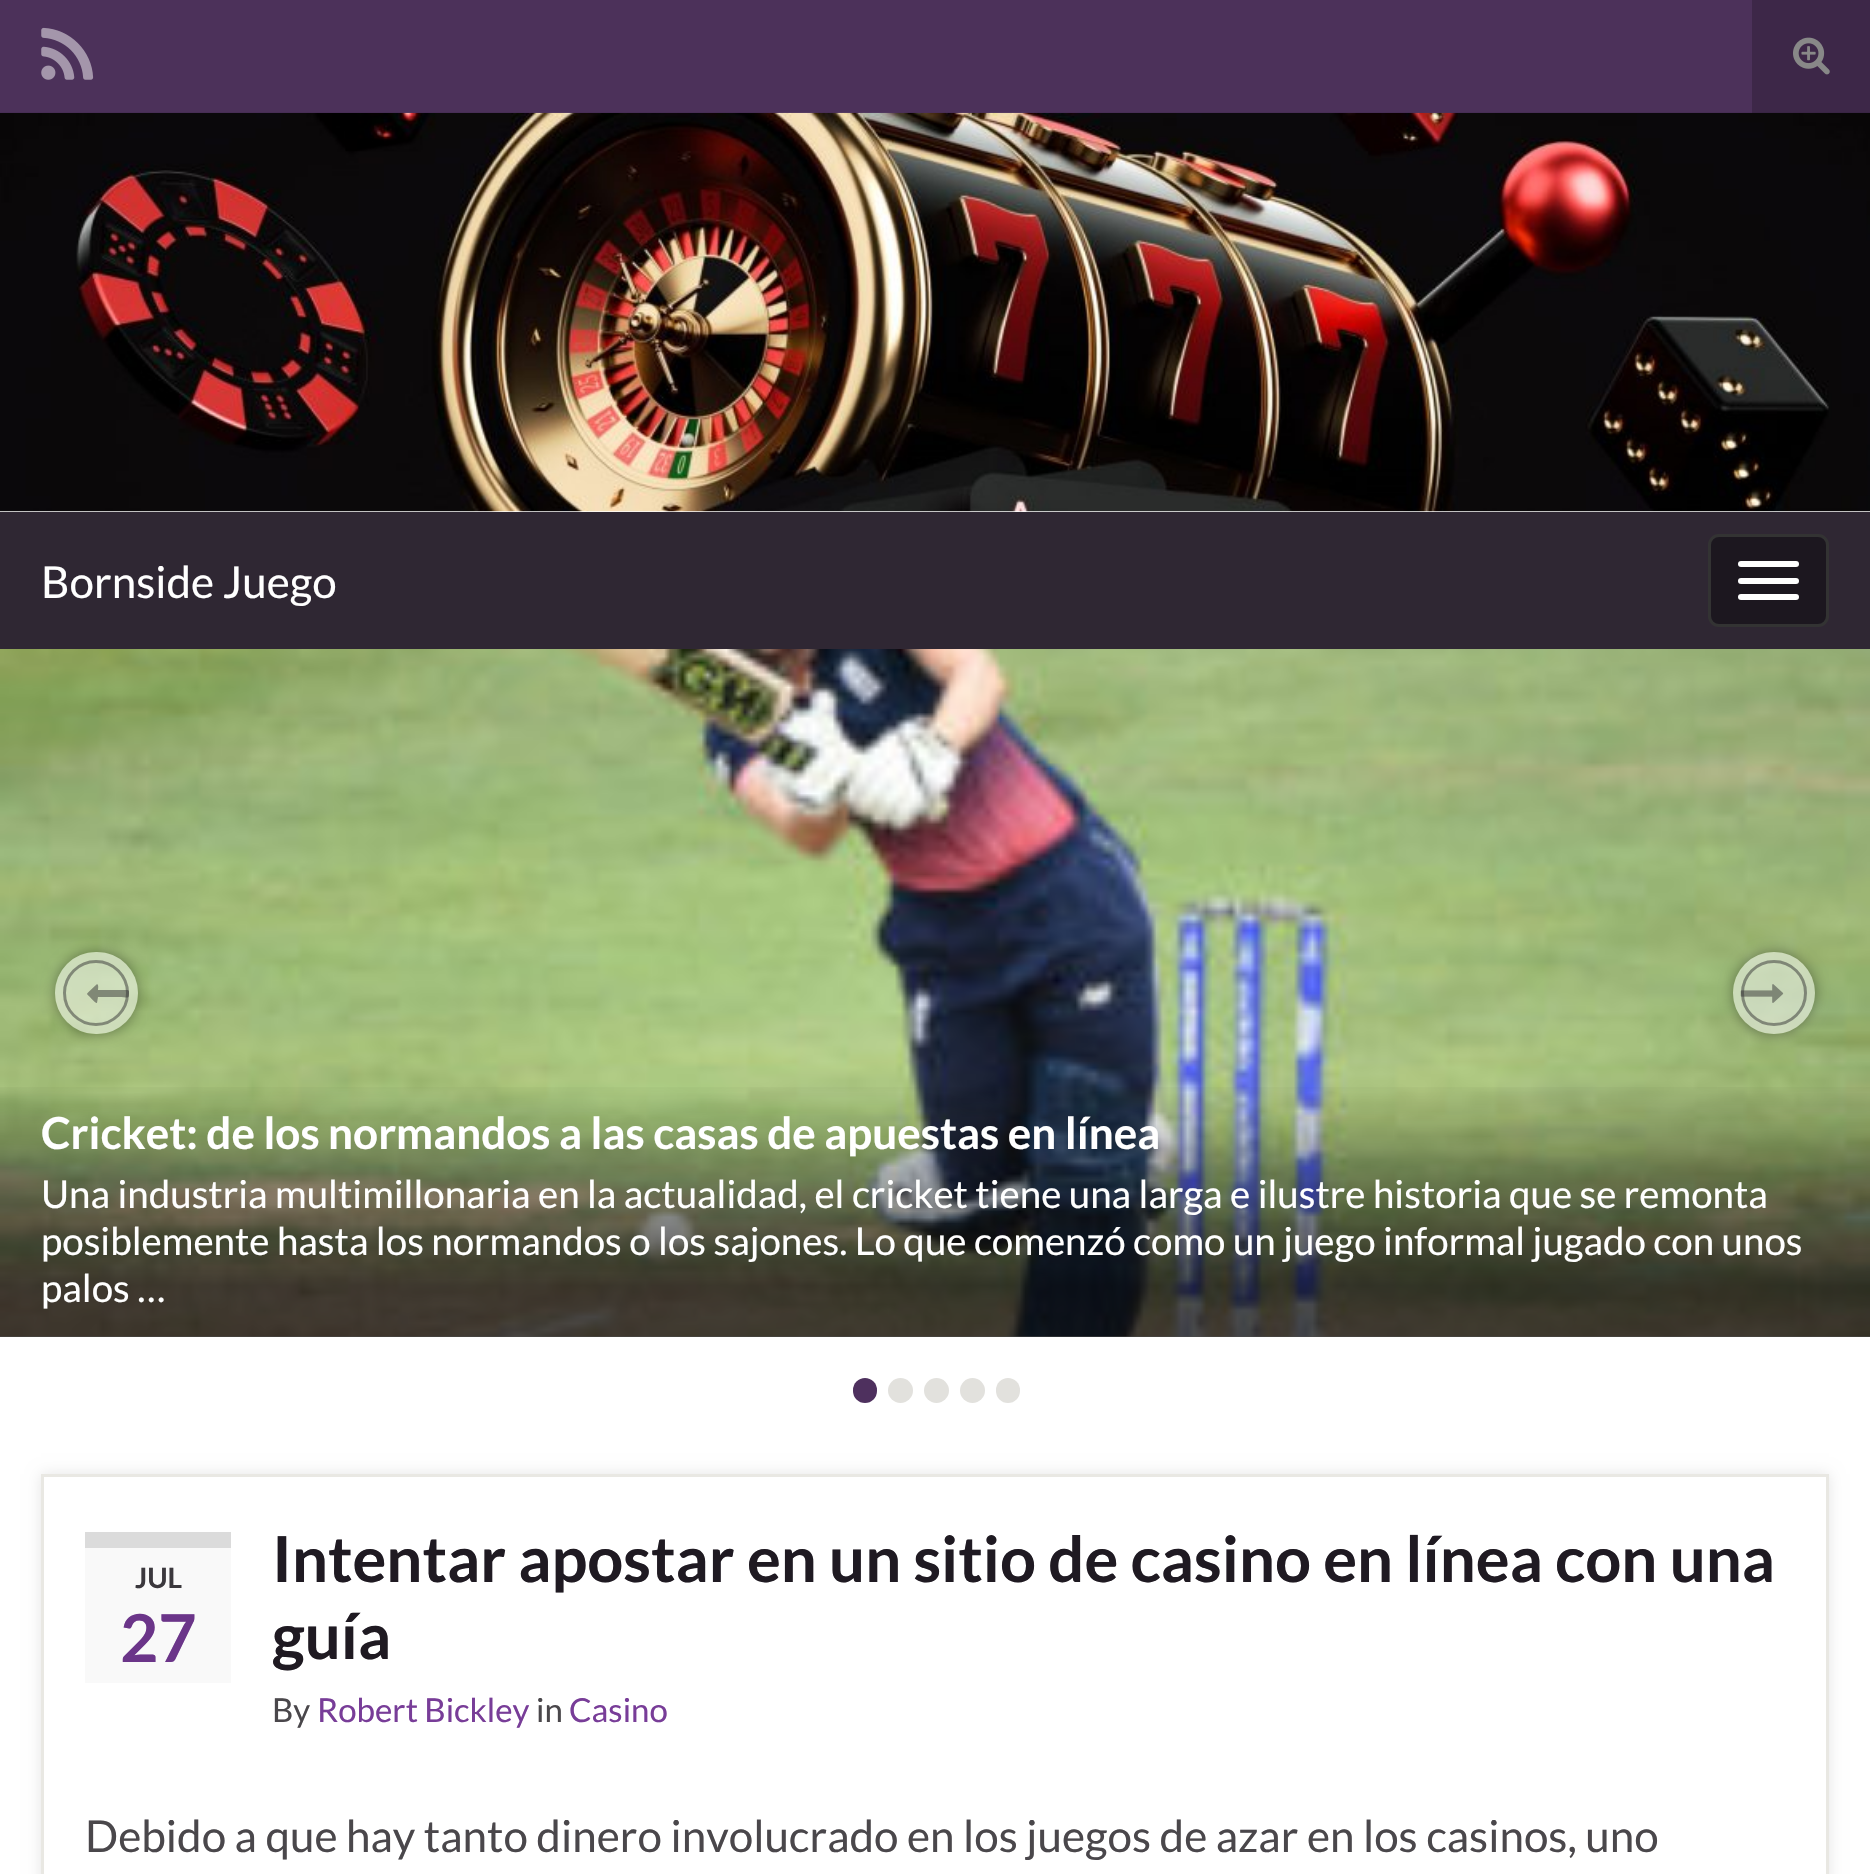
void draw(SkCanvas* canvas) {
    SkPaint paint;
    paint.setAntiAlias(true);
    canvas->clear(0xFFFFFFFF);
    paint.setColor(0xFF4C315A);
    canvas->drawRect(SkRect::MakeXYWH(0, 0, 1752, 113), paint);
    canvas->drawImageRect(SkImages::DeferredFromEncodedData(SkData::MakeFromFileName("img1.png")), SkRect::MakeXYWH(41, 27, 53, 53), SkSamplingOptions());
    paint.setColor(0xFF3D2748);
    canvas->drawRect(SkRect::MakeXYWH(1752, 0, 118, 113), paint);
    canvas->drawImageRect(SkImages::DeferredFromEncodedData(SkData::MakeFromFileName("img2.png")), SkRect::MakeXYWH(1793, 37, 37, 38), SkSamplingOptions());
    canvas->drawImageRect(SkImages::DeferredFromEncodedData(SkData::MakeFromFileName("img3.png")), SkRect::MakeXYWH(0, 112, 1870, 400), SkSamplingOptions());
    paint.setColor(0xFF2F2733);
    canvas->drawRect(SkRect::MakeXYWH(0, 512, 1870, 137), paint);
    SkFont font1(fontMgr->matchFamilyStyle("Lato", SkFontStyle::Normal()), 44);
    font1.setSubpixel(true);
    paint.setColor(0xFFFFFFFF);
    canvas->drawString("Bornside Juego", 41, 598, font1, paint);
    paint.setColor(0xFF1C171F);
    canvas->drawRoundRect(SkRect::MakeXYWH(1709.5f, 535.5f, 118, 90), 9.5f, 9.5f, paint);
    paint.setStyle(SkPaint::kStroke_Style);
    paint.setStrokeWidth(3);
    paint.setColor(0xFF333333);
    canvas->drawRoundRect(SkRect::MakeXYWH(1709.5f, 535.5f, 118, 90), 9.5f, 9.5f, paint);
    paint.setStyle(SkPaint::kFill_Style);
    paint.setColor(0xFFFFFFFF);
    canvas->drawRoundRect(SkRect::MakeXYWH(1738, 561, 61, 6), 3, 3, paint);
    canvas->drawRoundRect(SkRect::MakeXYWH(1738, 578, 61, 6), 3, 3, paint);
    canvas->drawRoundRect(SkRect::MakeXYWH(1738, 594, 61, 6), 3, 3, paint);
    canvas->drawImageRect(SkImages::DeferredFromEncodedData(SkData::MakeFromFileName("img5.png")), SkRect::MakeXYWH(0, 649, 1870, 688), SkSamplingOptions());
    canvas->save();
    canvas->clipPath(SkPathBuilder(SkPathFillType::kEvenOdd).moveTo(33, 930).lineTo(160, 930).lineTo(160, 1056).lineTo(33, 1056).close().moveTo(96, 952).lineTo(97, 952).cubicTo(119.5f, 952, 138, 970.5f, 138, 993).cubicTo(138, 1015.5f, 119.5f, 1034, 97, 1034).lineTo(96, 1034).cubicTo(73.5f, 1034, 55, 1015.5f, 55, 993).cubicTo(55, 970.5f, 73.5f, 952, 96, 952).close().detach(), true);
    paint.setColor(0x61000000);
    paint.setMaskFilter(SkMaskFilter::MakeBlur(kNormal_SkBlurStyle, 7));
    canvas->drawRoundRect(SkRect::MakeXYWH(55, 952, 83, 82), 41, 41, paint);
    paint.setMaskFilter(nullptr);
    canvas->restore();
    paint.setColor(0x80FFFFFF);
    canvas->drawRoundRect(SkRect::MakeXYWH(55, 952, 83, 82), 41, 41, paint);
    paint.setStyle(SkPaint::kStroke_Style);
    paint.setColor(0x80333333);
    canvas->drawCircle(96, 993, 31.5f, paint);
    paint.setStyle(SkPaint::kFill_Style);
    canvas->drawPath(SkPathBuilder().moveTo(129, 991).cubicTo(129, 1000, 130, 997, 118, 997).lineTo(98, 997).lineTo(97, 1003).cubicTo(96, 1004, 87, 994, 87, 994).cubicTo(87, 993, 97, 984, 97, 984).cubicTo(99, 985, 98, 989, 98, 990).lineTo(128, 990).close().detach(), paint);
    canvas->save();
    canvas->clipPath(SkPathBuilder(SkPathFillType::kEvenOdd).moveTo(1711, 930).lineTo(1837, 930).lineTo(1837, 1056).lineTo(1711, 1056).close().moveTo(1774, 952).cubicTo(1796.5f, 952, 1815, 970.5f, 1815, 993).cubicTo(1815, 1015.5f, 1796.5f, 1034, 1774, 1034).cubicTo(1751.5f, 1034, 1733, 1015.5f, 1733, 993).cubicTo(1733, 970.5f, 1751.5f, 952, 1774, 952).close().detach(), true);
    paint.setColor(0x61000000);
    paint.setMaskFilter(SkMaskFilter::MakeBlur(kNormal_SkBlurStyle, 7));
    canvas->drawRoundRect(SkRect::MakeXYWH(1733, 952, 82, 82), 41, 41, paint);
    paint.setMaskFilter(nullptr);
    canvas->restore();
    paint.setColor(0x80FFFFFF);
    canvas->drawCircle(1774, 993, 41, paint);
    paint.setStyle(SkPaint::kStroke_Style);
    paint.setColor(0x80333333);
    canvas->drawCircle(1774, 993, 31.5f, paint);
    canvas->drawImageRect(SkImages::DeferredFromEncodedData(SkData::MakeFromFileName("img4.png")), SkRect::MakeXYWH(1740, 984, 44, 19), SkSamplingOptions());
    paint.setStyle(SkPaint::kFill_Style);
    {
        const SkColor colors[] = {0xB3000000, 0x00000000};
        const float stops[] = {0.2f, 1};
        const SkPoint ends[] = {{935, 1337}, {935, 1081}};
        paint.setShader(SkGradientShader::MakeLinear(ends, colors, stops, 2, SkTileMode::kClamp));
        paint.setAlpha(255);
    }
    canvas->drawRect(SkRect::MakeXYWH(0, 1087, 1870, 250), paint);
    SkFont font2(fontMgr->matchFamilyStyle("Lato", SkFontStyle::Bold()), 44);
    font2.setSubpixel(true);
    paint.setShader(nullptr);
    paint.setColor(0xFFFFFFFF);
    canvas->drawString("Cricket: de los normandos a las casas de apuestas en línea", 41, 1149, font2, paint);
    SkFont font3(fontMgr->matchFamilyStyle("Lato", SkFontStyle::Normal()), 38.5f);
    font3.setSubpixel(true);
    canvas->drawString("Una industria multimillonaria en la actualidad, el cricket tiene una larga e ilustre historia que se remonta", 41, 1208, font3, paint);
    canvas->drawString("posiblemente hasta los normandos o los sajones. Lo que comenzó como un juego informal jugado con unos", 41, 1255, font3, paint);
    canvas->drawString("palos …", 41, 1302, font3, paint);
    paint.setColor(0xFF4E305E);
    canvas->drawRoundRect(SkRect::MakeXYWH(853, 1378, 24, 25), 12, 12, paint);
    paint.setColor(0xFFE2E1DD);
    canvas->drawCircle(900.5f, 1390.5f, 12.5f, paint);
    canvas->drawCircle(936.5f, 1390.5f, 12.5f, paint);
    canvas->drawCircle(972.5f, 1390.5f, 12.5f, paint);
    canvas->drawRoundRect(SkRect::MakeXYWH(996, 1378, 24, 25), 12, 12, paint);
    paint.setColor(0x1A000000);
    paint.setMaskFilter(SkMaskFilter::MakeBlur(kNormal_SkBlurStyle, 7));
    canvas->drawRect(SkRect::MakeXYWH(41, 1474, 1788, 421), paint);
    paint.setMaskFilter(nullptr);
    paint.setColor(0xFFFFFFFF);
    canvas->drawRect(SkRect::MakeXYWH(42.5f, 1475.5f, 1785, 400), paint);
    paint.setStyle(SkPaint::kStroke_Style);
    paint.setColor(0xFFE9E8E3);
    canvas->drawRect(SkRect::MakeXYWH(42.5f, 1475.5f, 1785, 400), paint);
    paint.setStyle(SkPaint::kFill_Style);
    paint.setColor(0xFFF9F9F9);
    canvas->drawRect(SkRect::MakeXYWH(85, 1548, 146, 135), paint);
    paint.setColor(0xFFDBDBDB);
    canvas->drawRect(SkRect::MakeXYWH(85, 1532, 146, 16), paint);
    SkFont font4(fontMgr->matchFamilyStyle("Lato", SkFontStyle::Bold()), 28);
    font4.setSubpixel(true);
    paint.setColor(0xFF3B383D);
    canvas->drawString("JUL", 135, 1588, font4, paint);
    SkFont font5(fontMgr->matchFamilyStyle("Lato", SkFontStyle::Bold()), 66);
    font5.setSubpixel(true);
    paint.setColor(0xFF6B3589);
    canvas->drawString("27", 120, 1662, font5, paint);
    SkFont font6(fontMgr->matchFamilyStyle("Lato", SkFontStyle::Bold()), 63.4f);
    font6.setSubpixel(true);
    paint.setColor(0xFF1F1A22);
    canvas->drawString("Intentar apostar en un sitio de casino en línea con una", 272, 1582, font6, paint);
    canvas->drawString("guía", 272, 1659, font6, paint);
    SkFont font7(fontMgr->matchFamilyStyle("Lato", SkFontStyle::Normal()), 33);
    font7.setSubpixel(true);
    paint.setColor(0xFF4A474B);
    canvas->drawString("By", 272, 1722, font7, paint);
    paint.setColor(0xFF783D98);
    canvas->drawString("Robert Bickley", 317, 1722, font7, paint);
    paint.setColor(0xFF4A474B);
    canvas->drawString("in", 536, 1722, font7, paint);
    paint.setColor(0xFF783D98);
    canvas->drawString("Casino", 569, 1722, font7, paint);
    paint.setColor(0xFF4A474B);
    canvas->drawString("Debido a que hay tanto dinero involucrado en los juegos de azar en los casinos, uno", 85, 1852, font1, paint);
}
